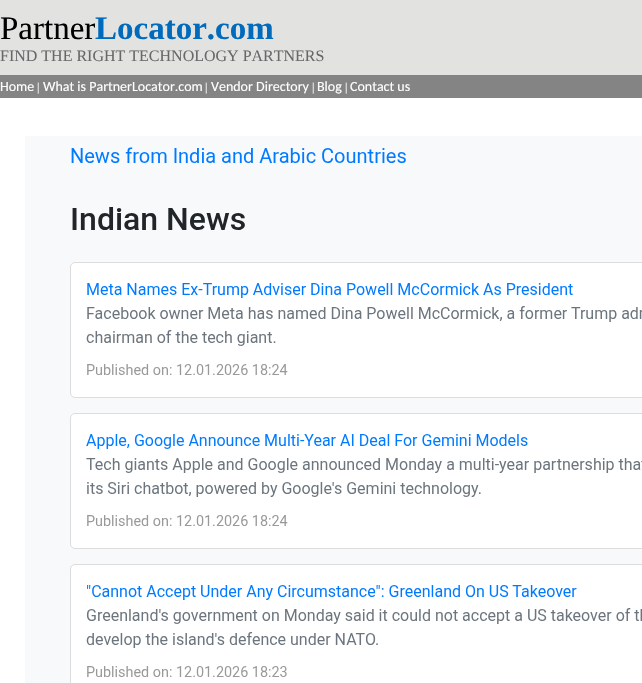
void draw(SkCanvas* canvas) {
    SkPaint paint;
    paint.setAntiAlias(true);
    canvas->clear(0xFFFFFFFF);
    paint.setColor(0xFFE2E3E1);
    canvas->drawRect(SkRect::MakeXYWH(0, 0, 642, 75), paint);
    SkFont font1(fontMgr->matchFamilyStyle("Liberation Serif", SkFontStyle::Normal()), 33);
    font1.setSubpixel(true);
    paint.setColor(0xFF000000);
    canvas->drawString("Partner", 0, 39, font1, paint);
    SkFont font2(fontMgr->matchFamilyStyle("Liberation Serif", SkFontStyle::Bold()), 33);
    font2.setSubpixel(true);
    paint.setColor(0xFF006ABC);
    canvas->drawString("Locator.com", 95, 39, font2, paint);
    SkFont font3(fontMgr->matchFamilyStyle("Liberation Serif", SkFontStyle::Normal()), 16);
    font3.setSubpixel(true);
    paint.setColor(0xFF686868);
    canvas->drawString("FIND THE RIGHT TECHNOLOGY PARTNERS", 0, 61, font3, paint);
    paint.setColor(0xFF848484);
    canvas->drawRect(SkRect::MakeXYWH(0, 75, 642, 23), paint);
    SkFont font4(fontMgr->matchFamilyStyle("Carlito", SkFontStyle::Normal()), 14);
    font4.setSubpixel(true);
    paint.setColor(0xFFFFFFFF);
    canvas->drawString("Home", 0, 91, font4, paint);
    SkFont font5(fontMgr->matchFamilyStyle("Liberation Serif", SkFontStyle::Normal()), 12);
    font5.setSubpixel(true);
    canvas->drawString("|", 37, 91, font5, paint);
    canvas->drawString("What is PartnerLocator.com", 43, 91, font4, paint);
    canvas->drawString("|", 205, 91, font5, paint);
    canvas->drawString("Vendor Directory", 211, 91, font4, paint);
    canvas->drawString("|", 312, 91, font5, paint);
    canvas->drawString("Blog", 317, 91, font4, paint);
    canvas->drawString("|", 345, 91, font5, paint);
    canvas->drawString("Contact us", 350, 91, font4, paint);
    canvas->drawImageRect(SkImages::DeferredFromEncodedData(SkData::MakeFromFileName("img1.png")), SkRect::MakeXYWH(25, 136, 617, 547), SkSamplingOptions());
}
